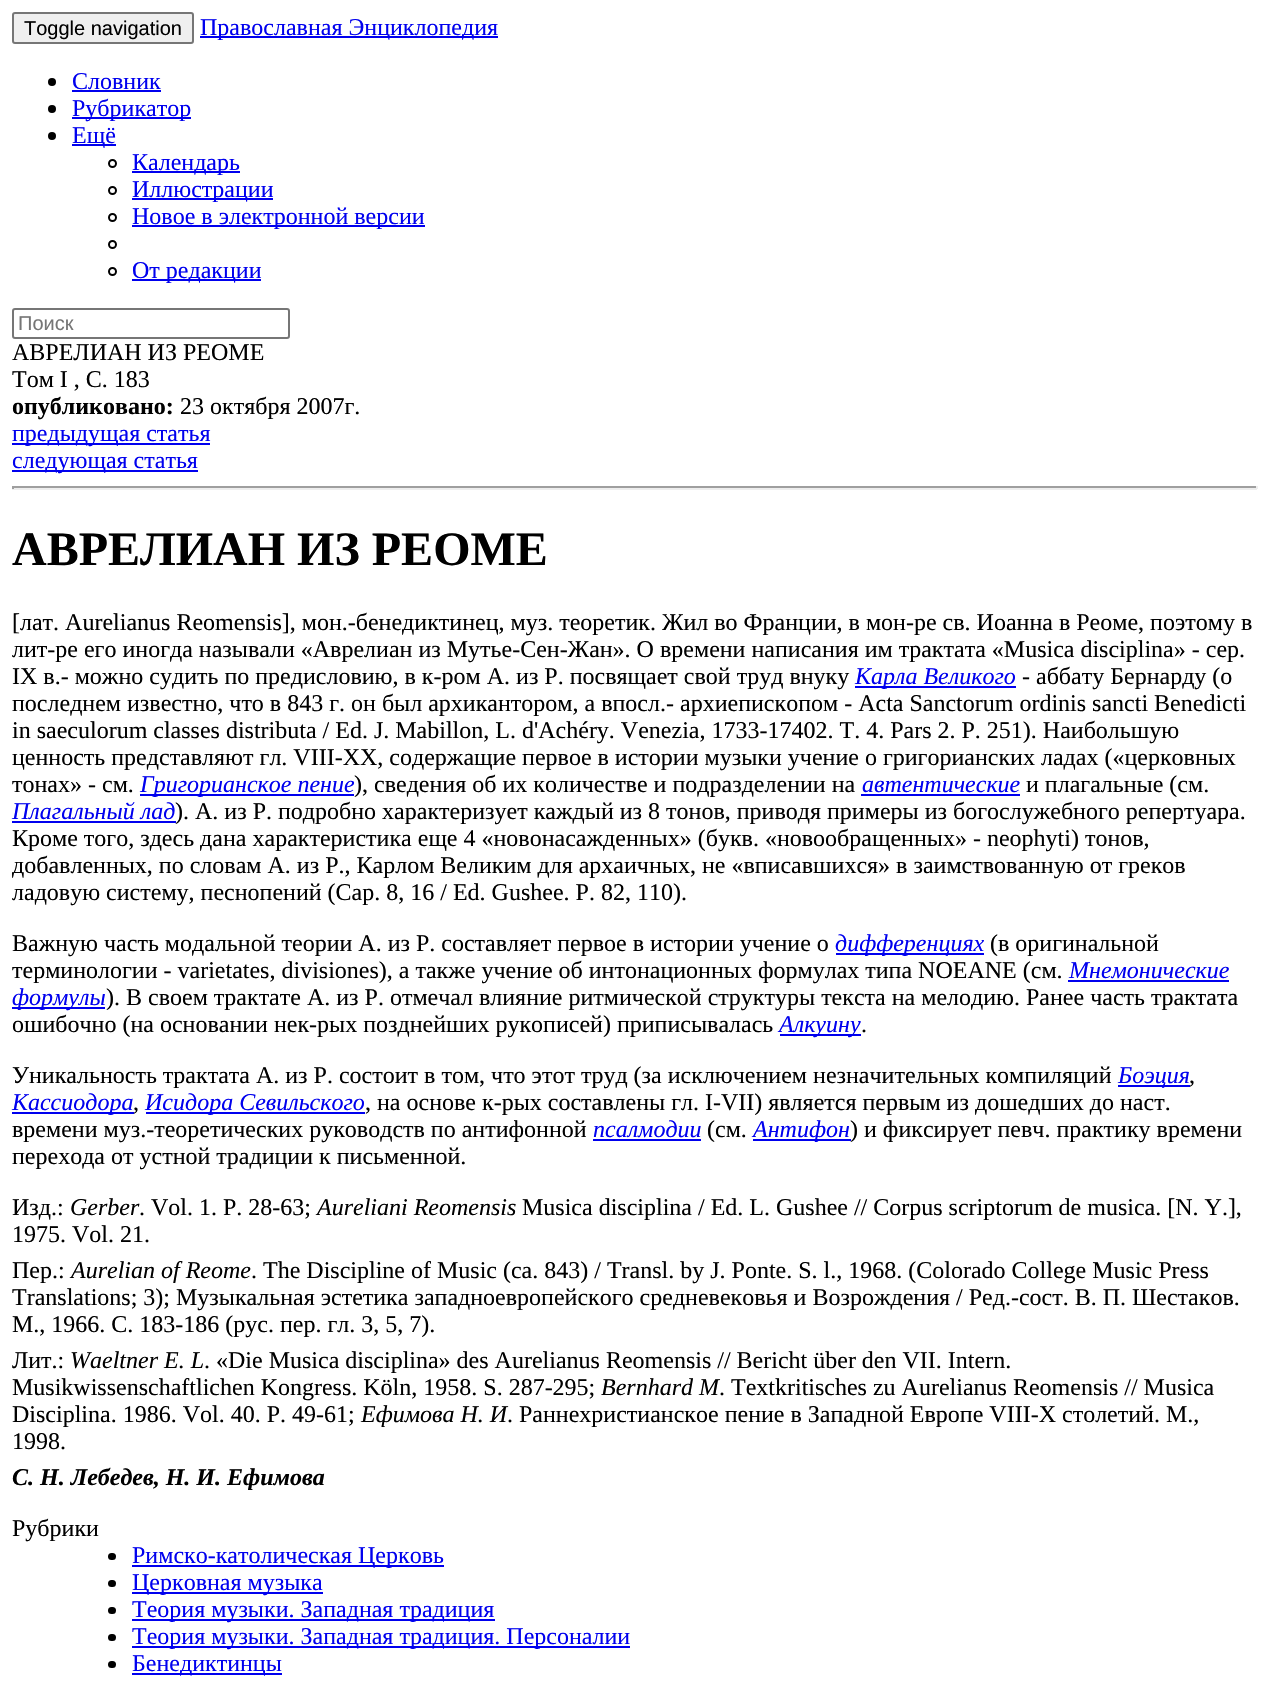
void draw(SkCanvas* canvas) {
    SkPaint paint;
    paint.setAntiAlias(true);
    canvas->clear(0xFFFFFFFF);
    paint.setColor(0xFFEFEFEF);
    canvas->drawRoundRect(SkRect::MakeXYWH(13, 13, 180, 30), 2, 2, paint);
    paint.setStyle(SkPaint::kStroke_Style);
    paint.setStrokeWidth(2);
    paint.setColor(0xFF767676);
    canvas->drawRoundRect(SkRect::MakeXYWH(13, 13, 180, 30), 2, 2, paint);
    SkFont font1(fontMgr->matchFamilyStyle("Liberation Sans", SkFontStyle::Normal()), 20);
    font1.setSubpixel(true);
    paint.setStyle(SkPaint::kFill_Style);
    paint.setColor(0xFF000000);
    canvas->drawString("Toggle navigation", 24, 35, font1, paint);
    paint.setColor(0xFF0000EE);
    canvas->drawRect(SkRect::MakeXYWH(200, 36, 298, 2), paint);
    SkFont font2(fontMgr->matchFamilyStyle("Liberation Serif", SkFontStyle::Normal()), 24);
    font2.setSubpixel(true);
    canvas->drawString("Православная Энциклопедия", 200, 35, font2, paint);
    paint.setColor(0xFF000000);
    canvas->drawCircle(52, 82, 4, paint);
    paint.setColor(0xFF0000EE);
    canvas->drawString("Словник", 72, 89, font2, paint);
    canvas->drawRect(SkRect::MakeXYWH(72, 90, 89, 2), paint);
    paint.setColor(0xFF000000);
    canvas->drawCircle(52, 109, 4, paint);
    paint.setColor(0xFF0000EE);
    canvas->drawRect(SkRect::MakeXYWH(72, 117, 119, 2), paint);
    canvas->drawString("Рубрикатор", 72, 116, font2, paint);
    paint.setColor(0xFF000000);
    canvas->drawCircle(52, 136, 4, paint);
    paint.setColor(0xFF0000EE);
    canvas->drawRect(SkRect::MakeXYWH(72, 144, 44, 2), paint);
    canvas->drawString("Ещё", 72, 143, font2, paint);
    paint.setStyle(SkPaint::kStroke_Style);
    paint.setColor(0xFF000000);
    canvas->drawCircle(112.5f, 163.5f, 3.5f, paint);
    paint.setStyle(SkPaint::kFill_Style);
    paint.setColor(0xFF0000EE);
    canvas->drawRect(SkRect::MakeXYWH(132, 171, 108, 2), paint);
    canvas->drawString("Календарь", 132, 170, font2, paint);
    paint.setStyle(SkPaint::kStroke_Style);
    paint.setColor(0xFF000000);
    canvas->drawCircle(112.5f, 190.5f, 3.5f, paint);
    paint.setStyle(SkPaint::kFill_Style);
    paint.setColor(0xFF0000EE);
    canvas->drawRect(SkRect::MakeXYWH(132, 198, 141, 2), paint);
    canvas->drawString("Иллюстрации", 132, 197, font2, paint);
    paint.setStyle(SkPaint::kStroke_Style);
    paint.setColor(0xFF000000);
    canvas->drawCircle(112.5f, 217.5f, 3.5f, paint);
    paint.setStyle(SkPaint::kFill_Style);
    paint.setColor(0xFF0000EE);
    canvas->drawRect(SkRect::MakeXYWH(132, 225, 293, 2), paint);
    canvas->drawString("Новое в электронной версии", 132, 224, font2, paint);
    paint.setStyle(SkPaint::kStroke_Style);
    paint.setColor(0xFF000000);
    canvas->drawCircle(112.5f, 244.5f, 3.5f, paint);
    canvas->drawCircle(112.5f, 271.5f, 3.5f, paint);
    paint.setStyle(SkPaint::kFill_Style);
    paint.setColor(0xFF0000EE);
    canvas->drawRect(SkRect::MakeXYWH(132, 279, 129, 2), paint);
    canvas->drawString("От редакции", 132, 278, font2, paint);
    paint.setStyle(SkPaint::kStroke_Style);
    paint.setColor(0xFF767676);
    canvas->drawRoundRect(SkRect::MakeXYWH(13, 309, 276, 29), 2, 2, paint);
    paint.setStyle(SkPaint::kFill_Style);
    paint.setColor(0xFF757575);
    canvas->drawString("Поиск", 18, 330, font1, paint);
    paint.setColor(0xFF000000);
    canvas->drawString("АВРЕЛИАН ИЗ РЕОМЕ", 12, 360, font2, paint);
    canvas->drawString("Том I , С. 183", 12, 387, font2, paint);
    SkFont font3(fontMgr->matchFamilyStyle("Liberation Serif", SkFontStyle::Bold()), 24);
    font3.setSubpixel(true);
    canvas->drawString("опубликовано:", 12, 414, font3, paint);
    canvas->drawString("23 октября 2007г.", 180, 414, font2, paint);
    paint.setColor(0xFF0000EE);
    canvas->drawRect(SkRect::MakeXYWH(12, 443, 198, 2), paint);
    canvas->drawString("предыдущая статья", 12, 441, font2, paint);
    canvas->drawRect(SkRect::MakeXYWH(12, 470, 186, 2), paint);
    canvas->drawString("следующая статья", 12, 468, font2, paint);
    paint.setColor(0xFF9F9F9F);
    canvas->drawRect(SkRect::MakeXYWH(12, 486, 1245, 2), paint);
    paint.setColor(0xFFEEEEEE);
    canvas->drawRect(SkRect::MakeXYWH(1256, 486, 2, 3), paint);
    canvas->drawRect(SkRect::MakeXYWH(12, 488, 1245, 2), paint);
    paint.setColor(0xFF9F9F9F);
    canvas->drawRect(SkRect::MakeXYWH(12, 486, 2, 3), paint);
    SkFont font4(fontMgr->matchFamilyStyle("Liberation Serif", SkFontStyle::Bold()), 48);
    font4.setSubpixel(true);
    paint.setColor(0xFF000000);
    canvas->drawString("АВРЕЛИАН ИЗ РЕОМЕ", 12, 565, font4, paint);
    canvas->drawString("[лат. Aurelianus Reomensis], мон.-бенедиктинец, муз. теоретик. Жил во Франции, в мон-ре св. Иоанна в Реоме, поэтому в", 12, 630, font2, paint);
    canvas->drawString("лит-ре его иногда называли «Аврелиан из Мутье-Сен-Жан». О времени написания им трактата «Musica disciplina» - сер.", 12, 657, font2, paint);
    canvas->drawString("IX в.- можно судить по предисловию, в к-ром А. из Р. посвящает свой труд внуку", 12, 684, font2, paint);
    paint.setColor(0xFF0000EE);
    canvas->drawRect(SkRect::MakeXYWH(855, 686, 161, 2), paint);
    SkFont font5(fontMgr->matchFamilyStyle("Liberation Serif", SkFontStyle::Italic()), 24);
    font5.setSubpixel(true);
    canvas->drawString("Карла Великого", 855, 684, font5, paint);
    paint.setColor(0xFF000000);
    canvas->drawString("- аббату Бернарду (о", 1022, 684, font2, paint);
    canvas->drawString("последнем известно, что в 843 г. он был архикантором, а впосл.- архиепископом - Acta Sanctorum ordinis sancti Benedicti", 12, 711, font2, paint);
    canvas->drawString("in saeculorum classes distributa / Ed. J. Mabillon, L. d'Achéry. Venezia, 1733-17402. T. 4. Pars 2. P. 251). Наибольшую", 12, 738, font2, paint);
    canvas->drawString("ценность представляют гл. VIII-XX, содержащие первое в истории музыки учение о григорианских ладах («церковных", 12, 765, font2, paint);
    canvas->drawString("тонах» - см.", 12, 792, font2, paint);
    paint.setColor(0xFF0000EE);
    canvas->drawRect(SkRect::MakeXYWH(140, 794, 214, 2), paint);
    canvas->drawString("Григорианское пение", 140, 792, font5, paint);
    paint.setColor(0xFF000000);
    canvas->drawString("), сведения об их количестве и подразделении на", 354, 792, font2, paint);
    paint.setColor(0xFF0000EE);
    canvas->drawString("автентические", 862, 792, font5, paint);
    canvas->drawRect(SkRect::MakeXYWH(861, 794, 159, 2), paint);
    paint.setColor(0xFF000000);
    canvas->drawString("и плагальные (см.", 1026, 792, font2, paint);
    paint.setColor(0xFF0000EE);
    canvas->drawString("Плагальный лад", 12, 819, font5, paint);
    canvas->drawRect(SkRect::MakeXYWH(12, 821, 164, 2), paint);
    paint.setColor(0xFF000000);
    canvas->drawString("). А. из Р. подробно характеризует каждый из 8 тонов, приводя примеры из богослужебного репертуара.", 175, 819, font2, paint);
    canvas->drawString("Кроме того, здесь дана характеристика еще 4 «новонасажденных» (букв. «новообращенных» - neophyti) тонов,", 12, 846, font2, paint);
    canvas->drawString("добавленных, по словам А. из Р., Карлом Великим для архаичных, не «вписавшихся» в заимствованную от греков", 12, 873, font2, paint);
    canvas->drawString("ладовую систему, песнопений (Cap. 8, 16 / Ed. Gushee. P. 82, 110).", 12, 900, font2, paint);
    canvas->drawString("Важную часть модальной теории А. из Р. составляет первое в истории учение о", 12, 951, font2, paint);
    paint.setColor(0xFF0000EE);
    canvas->drawRect(SkRect::MakeXYWH(836, 953, 148, 2), paint);
    canvas->drawString("дифференциях", 835, 951, font5, paint);
    paint.setColor(0xFF000000);
    canvas->drawString("(в оригинальной", 990, 951, font2, paint);
    canvas->drawString("терминологии - varietates, divisiones), а также учение об интонационных формулах типа NOEANE (см.", 12, 978, font2, paint);
    paint.setColor(0xFF0000EE);
    canvas->drawString("Мнемонические", 1069, 978, font5, paint);
    canvas->drawRect(SkRect::MakeXYWH(1068, 980, 161, 2), paint);
    canvas->drawRect(SkRect::MakeXYWH(12, 1007, 93, 2), paint);
    canvas->drawString("формулы", 12, 1005, font5, paint);
    paint.setColor(0xFF000000);
    canvas->drawString("). В своем трактате А. из Р. отмечал влияние ритмической структуры текста на мелодию. Ранее часть трактата", 106, 1005, font2, paint);
    canvas->drawString("ошибочно (на основании нек-рых позднейших рукописей) приписывалась", 12, 1032, font2, paint);
    paint.setColor(0xFF0000EE);
    canvas->drawRect(SkRect::MakeXYWH(780, 1034, 81, 2), paint);
    canvas->drawString("Алкуину", 779, 1032, font5, paint);
    paint.setColor(0xFF000000);
    canvas->drawString(".", 861, 1032, font2, paint);
    canvas->drawString("Уникальность трактата А. из Р. состоит в том, что этот труд (за исключением незначительных компиляций", 12, 1083, font2, paint);
    paint.setColor(0xFF0000EE);
    canvas->drawRect(SkRect::MakeXYWH(1118, 1085, 72, 2), paint);
    canvas->drawString("Боэция", 1118, 1083, font5, paint);
    paint.setColor(0xFF000000);
    canvas->drawString(",", 1189, 1083, font2, paint);
    paint.setColor(0xFF0000EE);
    canvas->drawRect(SkRect::MakeXYWH(12, 1112, 122, 2), paint);
    canvas->drawString("Кассиодора", 12, 1110, font5, paint);
    paint.setColor(0xFF000000);
    canvas->drawString(",", 133, 1110, font2, paint);
    paint.setColor(0xFF0000EE);
    canvas->drawRect(SkRect::MakeXYWH(146, 1112, 219, 2), paint);
    canvas->drawString("Исидора Севильского", 145, 1110, font5, paint);
    paint.setColor(0xFF000000);
    canvas->drawString(", на основе к-рых составлены гл. I-VII) является первым из дошедших до наст.", 365, 1110, font2, paint);
    canvas->drawString("времени муз.-теоретических руководств по антифонной", 12, 1137, font2, paint);
    paint.setColor(0xFF0000EE);
    canvas->drawString("псалмодии", 593, 1137, font5, paint);
    canvas->drawRect(SkRect::MakeXYWH(593, 1139, 108, 2), paint);
    paint.setColor(0xFF000000);
    canvas->drawString("(см.", 707, 1137, font2, paint);
    paint.setColor(0xFF0000EE);
    canvas->drawRect(SkRect::MakeXYWH(753, 1139, 98, 2), paint);
    canvas->drawString("Антифон", 753, 1137, font5, paint);
    paint.setColor(0xFF000000);
    canvas->drawString(") и фиксирует певч. практику времени", 850, 1137, font2, paint);
    canvas->drawString("перехода от устной традиции к письменной.", 12, 1164, font2, paint);
    canvas->drawString("Изд.:", 12, 1215, font2, paint);
    canvas->drawString("Gerber", 70, 1215, font5, paint);
    canvas->drawString(". Vol. 1. P. 28-63;", 139, 1215, font2, paint);
    canvas->drawString("Aureliani Reomensis", 317, 1215, font5, paint);
    canvas->drawString("Musica disciplina / Еd. L. Gushee // Corpus scriptorum de musica. [N. Y.],", 522, 1215, font2, paint);
    canvas->drawString("1975. Vol. 21.", 12, 1242, font2, paint);
    canvas->drawString("Пер.:", 12, 1278, font2, paint);
    canvas->drawString("Aurelian of Reome", 71, 1278, font5, paint);
    canvas->drawString(". The Discipline of Music (ca. 843) / Transl. by J. Ponte. S. l., 1968. (Colorado College Music Press", 251, 1278, font2, paint);
    canvas->drawString("Translations; 3); Музыкальная эстетика западноевропейского средневековья и Возрождения / Ред.-сост. В. П. Шестаков.", 12, 1305, font2, paint);
    canvas->drawString("М., 1966. С. 183-186 (рус. пер. гл. 3, 5, 7).", 12, 1332, font2, paint);
    canvas->drawString("Лит.:", 12, 1368, font2, paint);
    canvas->drawString("Waeltner E. L", 70, 1368, font5, paint);
    canvas->drawString(". «Die Musica disciplina» des Aurelianus Reomensis // Bericht über den VII. Intern.", 204, 1368, font2, paint);
    canvas->drawString("Musikwissenschaftlichen Kongress. Köln, 1958. S. 287-295;", 12, 1395, font2, paint);
    canvas->drawString("Bernhard M", 601, 1395, font5, paint);
    canvas->drawString(". Textkritisches zu Aurelianus Reomensis // Musica", 719, 1395, font2, paint);
    canvas->drawString("Disciplina. 1986. Vol. 40. Р. 49-61;", 12, 1422, font2, paint);
    canvas->drawString("Ефимова Н. И", 361, 1422, font5, paint);
    canvas->drawString(". Раннехристианское пение в Западной Европе VIII-X столетий. М.,", 507, 1422, font2, paint);
    canvas->drawString("1998.", 12, 1449, font2, paint);
    SkFont font6(fontMgr->matchFamilyStyle("Liberation Serif", SkFontStyle::BoldItalic()), 24);
    font6.setSubpixel(true);
    canvas->drawString("С. Н. Лебедев, Н. И. Ефимова", 12, 1485, font6, paint);
    canvas->drawString("Рубрики", 12, 1536, font2, paint);
    canvas->drawRoundRect(SkRect::MakeXYWH(108, 1553, 8, 7), 3.5f, 3.5f, paint);
    paint.setColor(0xFF0000EE);
    canvas->drawRect(SkRect::MakeXYWH(132, 1565, 312, 2), paint);
    canvas->drawString("Римско-католическая Церковь", 132, 1563, font2, paint);
    paint.setColor(0xFF000000);
    canvas->drawRoundRect(SkRect::MakeXYWH(108, 1580, 8, 7), 3.5f, 3.5f, paint);
    paint.setColor(0xFF0000EE);
    canvas->drawRect(SkRect::MakeXYWH(132, 1592, 191, 2), paint);
    canvas->drawString("Церковная музыка", 132, 1590, font2, paint);
    paint.setColor(0xFF000000);
    canvas->drawRoundRect(SkRect::MakeXYWH(108, 1607, 8, 7), 3.5f, 3.5f, paint);
    paint.setColor(0xFF0000EE);
    canvas->drawRect(SkRect::MakeXYWH(132, 1619, 363, 2), paint);
    canvas->drawString("Теория музыки. Западная традиция", 132, 1617, font2, paint);
    paint.setColor(0xFF000000);
    canvas->drawRoundRect(SkRect::MakeXYWH(108, 1634, 8, 7), 3.5f, 3.5f, paint);
    paint.setColor(0xFF0000EE);
    canvas->drawRect(SkRect::MakeXYWH(132, 1646, 498, 2), paint);
    canvas->drawString("Теория музыки. Западная традиция. Персоналии", 132, 1644, font2, paint);
    paint.setColor(0xFF000000);
    canvas->drawRoundRect(SkRect::MakeXYWH(108, 1661, 8, 7), 3.5f, 3.5f, paint);
    paint.setColor(0xFF0000EE);
    canvas->drawRect(SkRect::MakeXYWH(132, 1673, 150, 2), paint);
    canvas->drawString("Бенедиктинцы", 132, 1671, font2, paint);
}
